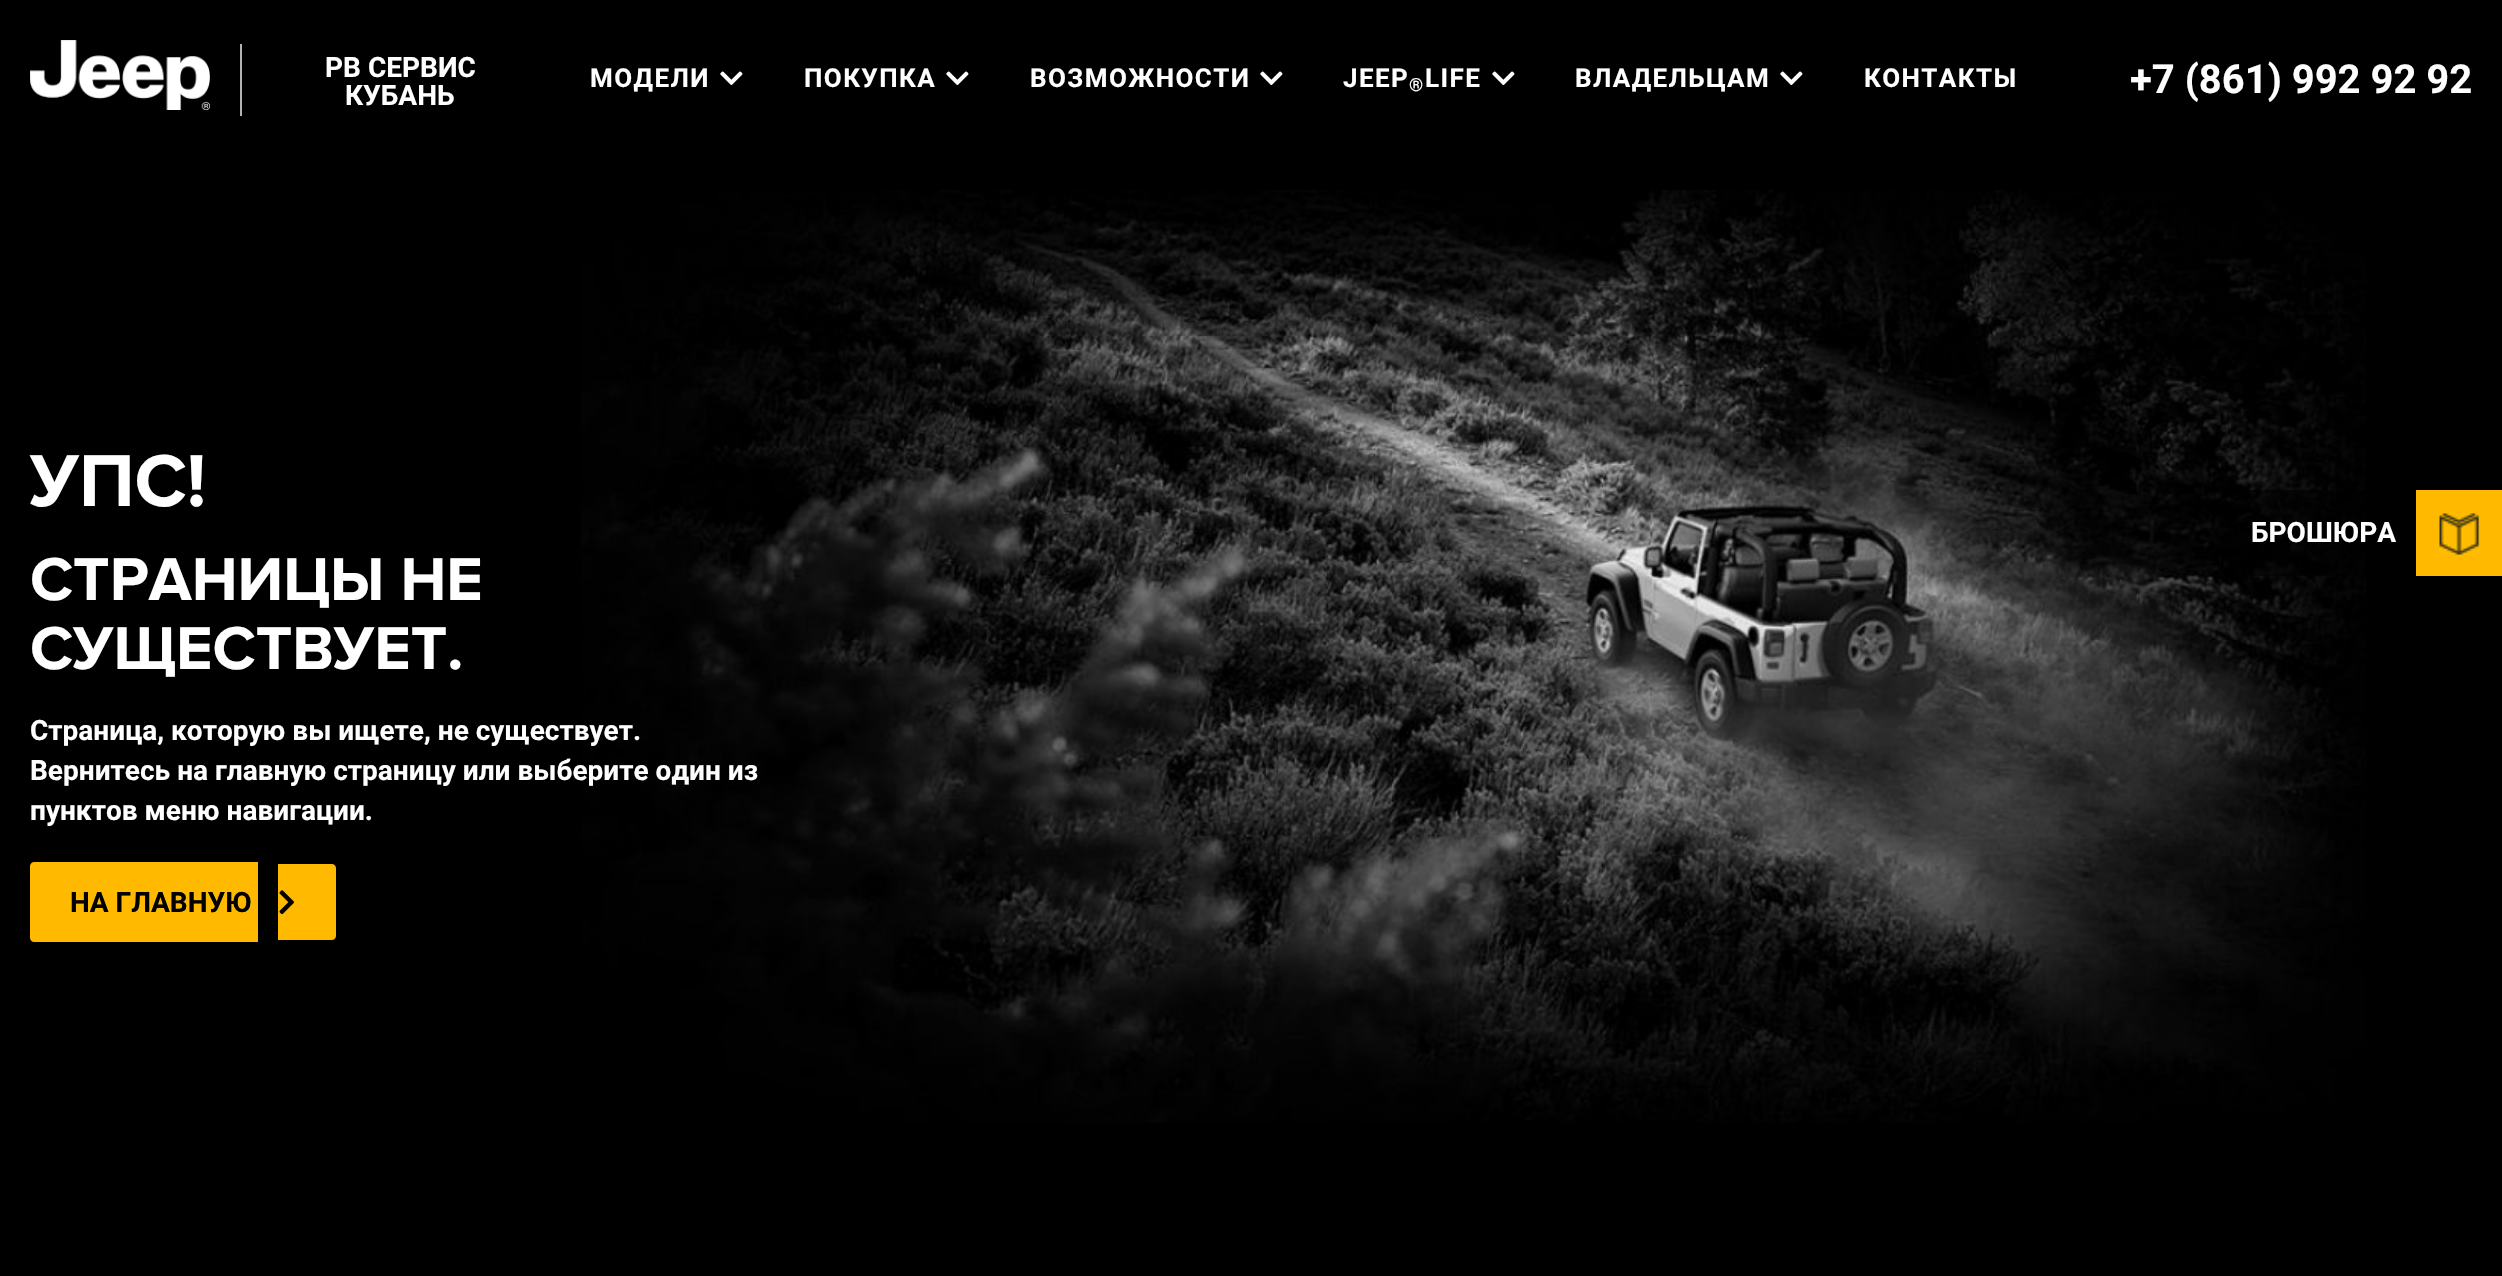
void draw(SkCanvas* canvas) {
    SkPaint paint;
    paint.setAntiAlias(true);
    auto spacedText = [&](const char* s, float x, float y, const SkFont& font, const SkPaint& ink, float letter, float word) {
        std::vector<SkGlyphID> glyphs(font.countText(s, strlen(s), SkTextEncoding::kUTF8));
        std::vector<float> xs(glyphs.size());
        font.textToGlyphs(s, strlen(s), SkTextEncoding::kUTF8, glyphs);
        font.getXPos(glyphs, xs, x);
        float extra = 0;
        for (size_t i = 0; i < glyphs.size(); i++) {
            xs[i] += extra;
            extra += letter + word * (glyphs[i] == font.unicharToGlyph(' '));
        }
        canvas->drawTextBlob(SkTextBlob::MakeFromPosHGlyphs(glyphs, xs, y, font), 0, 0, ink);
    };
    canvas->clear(0xFF000000);
    canvas->drawImageRect(SkImages::DeferredFromEncodedData(SkData::MakeFromFileName("img1.png")), SkRect::MakeXYWH(30, 40, 180, 70), SkSamplingOptions());
    paint.setColor(0xFFB3B3B3);
    canvas->drawRect(SkRect::MakeXYWH(240, 44, 2, 72), paint);
    SkFont font1(fontMgr->matchFamilyStyle("Roboto", SkFontStyle::Bold()), 28);
    font1.setSubpixel(true);
    paint.setColor(0xFFFFFFFF);
    canvas->drawString("РВ СЕРВИС", 325, 77, font1, paint);
    canvas->drawString("КУБАНЬ", 345, 105, font1, paint);
    SkFont font2(fontMgr->matchFamilyStyle("Roboto", SkFontStyle::Bold()), 26);
    font2.setSubpixel(true);
    spacedText("МОДЕЛИ", 590, 87, font2, paint, 1.4f, 0);
    canvas->drawImageRect(SkImages::DeferredFromEncodedData(SkData::MakeFromFileName("img2.png")), SkRect::MakeXYWH(720, 71, 23, 14), SkSamplingOptions());
    spacedText("ПОКУПКА", 804, 87, font2, paint, 1.4f, 0);
    canvas->drawImageRect(SkImages::DeferredFromEncodedData(SkData::MakeFromFileName("img2.png")), SkRect::MakeXYWH(946, 71, 23, 14), SkSamplingOptions());
    spacedText("ВОЗМОЖНОСТИ", 1030, 87, font2, paint, 1.4f, 0);
    canvas->drawImageRect(SkImages::DeferredFromEncodedData(SkData::MakeFromFileName("img2.png")), SkRect::MakeXYWH(1260, 71, 23, 14), SkSamplingOptions());
    spacedText("JEEP", 1343, 87, font2, paint, 1.4f, 0);
    SkFont font3(fontMgr->matchFamilyStyle("Roboto", SkFontStyle::Normal()), 18);
    font3.setSubpixel(true);
    spacedText("®", 1409, 91, font3, paint, 1.4f, 0);
    spacedText("LIFE", 1425, 87, font2, paint, 1.4f, 0);
    canvas->drawImageRect(SkImages::DeferredFromEncodedData(SkData::MakeFromFileName("img2.png")), SkRect::MakeXYWH(1492, 71, 23, 14), SkSamplingOptions());
    spacedText("ВЛАДЕЛЬЦАМ", 1575, 87, font2, paint, 1.4f, 0);
    canvas->drawImageRect(SkImages::DeferredFromEncodedData(SkData::MakeFromFileName("img2.png")), SkRect::MakeXYWH(1780, 71, 23, 14), SkSamplingOptions());
    spacedText("КОНТАКТЫ", 1864, 87, font2, paint, 1.4f, 0);
    SkFont font4(fontMgr->matchFamilyStyle("Roboto", SkFontStyle::Bold()), 40);
    font4.setSubpixel(true);
    canvas->drawString("+7 (861) 992 92 92", 2130, 93, font4, paint);
    canvas->drawImageRect(SkImages::DeferredFromEncodedData(SkData::MakeFromFileName("img5.png")), SkRect::MakeXYWH(581, 190, 1785, 933), SkSamplingOptions());
    paint.setColor(0xA6000000);
    canvas->drawRect(SkRect::MakeXYWH(2230, 490, 129, 86), paint);
    paint.setColor(0xFFFFFFFF);
    canvas->drawString("БРОШЮРА", 2251, 542, font1, paint);
    paint.setColor(0xFFFFBA00);
    canvas->drawRect(SkRect::MakeXYWH(2416, 490, 86, 86), paint);
    canvas->drawImageRect(SkImages::DeferredFromEncodedData(SkData::MakeFromFileName("img3.png")), SkRect::MakeXYWH(2439, 513, 41, 42), SkSamplingOptions());
    SkFont font5(fontMgr->matchFamilyStyle("Proxima Nova", SkFontStyle::Bold()), 76);
    font5.setSubpixel(true);
    paint.setColor(0xFFFFFFFF);
    canvas->drawString("УПС!", 30, 506, font5, paint);
    SkFont font6(fontMgr->matchFamilyStyle("Proxima Nova", SkFontStyle::Bold()), 62.75f);
    font6.setSubpixel(true);
    canvas->drawString("СТРАНИЦЫ НЕ", 30, 600, font6, paint);
    canvas->drawString("СУЩЕСТВУЕТ.", 30, 669, font6, paint);
    canvas->drawString("Страница, которую вы ищете, не существует.", 30, 740, font1, paint);
    canvas->drawString("Вернитесь на главную страницу или выберите один из", 30, 780, font1, paint);
    canvas->drawString("пунктов меню навигации.", 30, 820, font1, paint);
    paint.setColor(0xFFFFBA00);
    canvas->drawPath(SkPathBuilder().moveTo(34, 862).lineTo(258, 862).lineTo(258, 942).lineTo(34, 942).cubicTo(32, 942, 30, 940, 30, 938).lineTo(30, 866).cubicTo(30, 864, 32, 862, 34, 862).close().detach(), paint);
    canvas->drawPath(SkPathBuilder().moveTo(278, 864).lineTo(332, 864).cubicTo(334, 864, 336, 866, 336, 868).lineTo(336, 936).cubicTo(336, 938, 334, 940, 332, 940).lineTo(278, 940).close().detach(), paint);
    paint.setColor(0xFF000000);
    canvas->drawString("НА ГЛАВНУЮ", 70, 912, font1, paint);
    canvas->drawImageRect(SkImages::DeferredFromEncodedData(SkData::MakeFromFileName("img4.png")), SkRect::MakeXYWH(279, 890, 15, 25), SkSamplingOptions());
}
